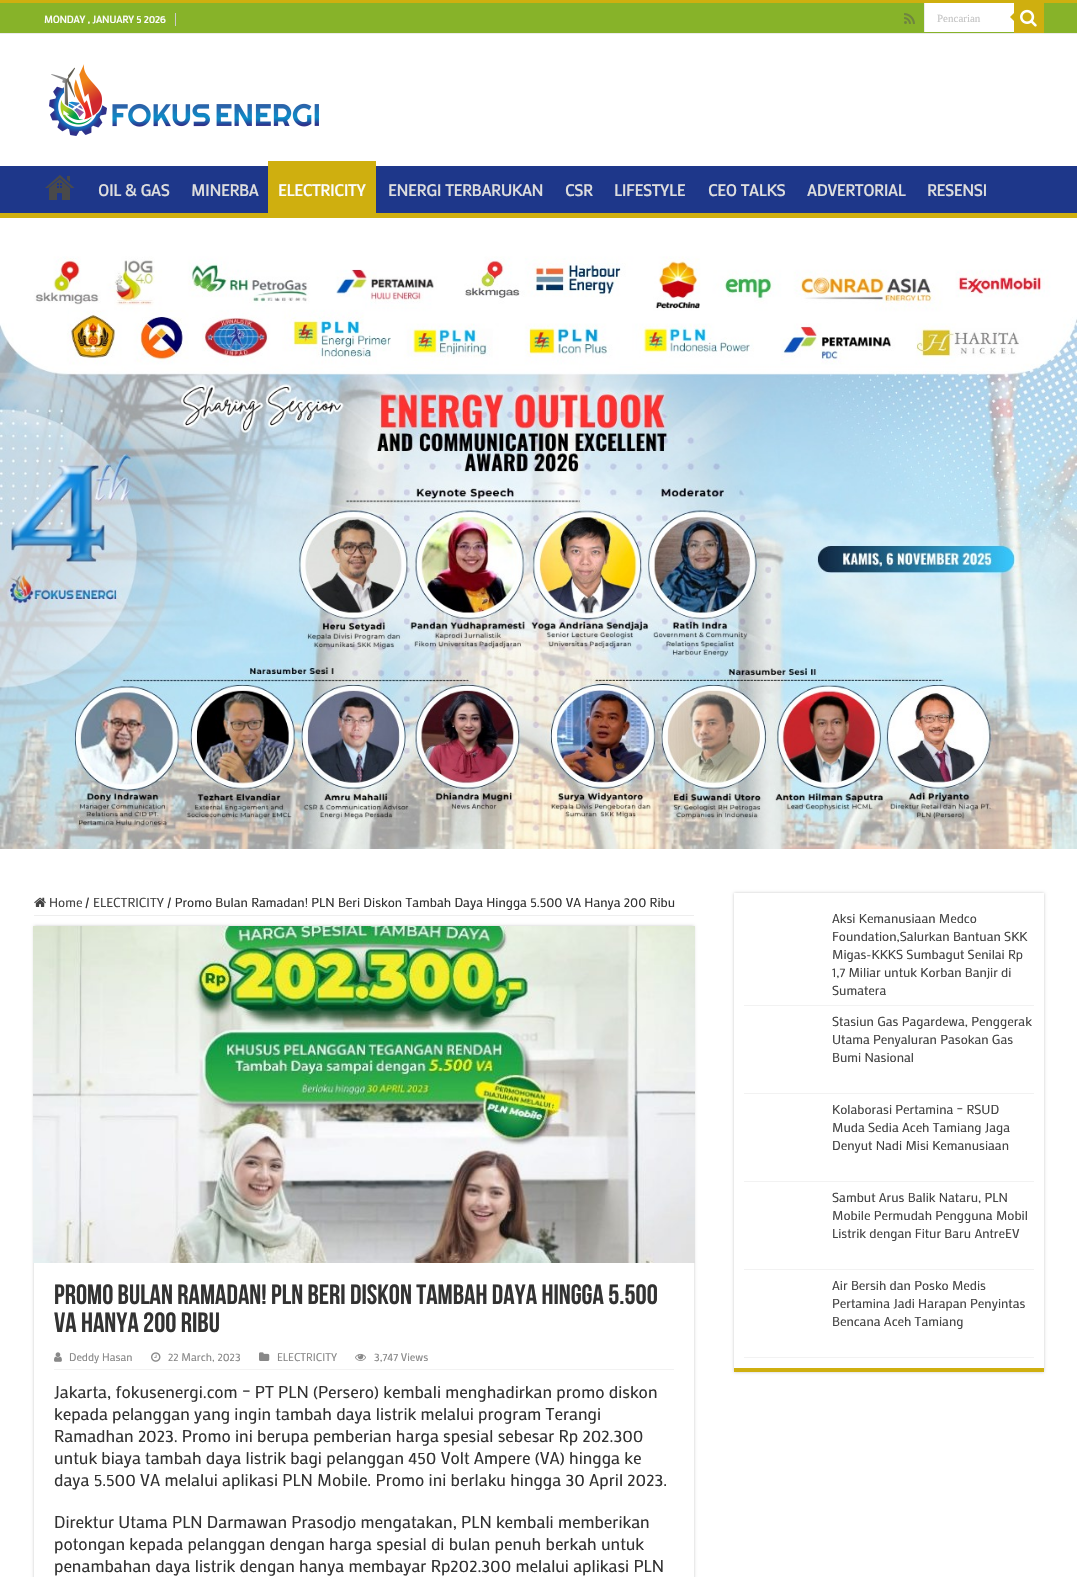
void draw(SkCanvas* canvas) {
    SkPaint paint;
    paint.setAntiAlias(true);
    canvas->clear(0xFFFFFFFF);
    paint.setColor(0xFFCFAF0F);
    canvas->drawRect(SkRect::MakeXYWH(0, 0, 1077, 3), paint);
    paint.setColor(0xFF87B329);
    canvas->drawRect(SkRect::MakeXYWH(0, 3, 1077, 30), paint);
    paint.setColor(0xFFECECEC);
    canvas->drawRect(SkRect::MakeXYWH(0, 33, 1077, 1), paint);
    paint.setColor(0xFFCCCCCC);
    canvas->drawRect(SkRect::MakeXYWH(175, 13, 1, 13), paint);
    SkFont font1(fontMgr->matchFamilyStyle("Mako", SkFontStyle::Bold()), 10);
    font1.setSubpixel(true);
    paint.setColor(0xFFFCFCFC);
    canvas->drawString("MONDAY , JANUARY 5 2026", 44, 23, font1, paint);
    canvas->drawImageRect(SkImages::DeferredFromEncodedData(SkData::MakeFromFileName("img1.png")), SkRect::MakeXYWH(904, 13, 11, 11), SkSamplingOptions());
    paint.setColor(0xFFFFFFFF);
    canvas->drawRect(SkRect::MakeXYWH(925, 3, 89, 29), paint);
    paint.setColor(0xFFECECEC);
    canvas->drawRect(SkRect::MakeXYWH(924, 3, 1, 29), paint);
    SkFont font2(fontMgr->matchFamilyStyle("Liberation Serif", SkFontStyle::Normal()), 11);
    font2.setSubpixel(true);
    paint.setColor(0xFFC5C5C5);
    canvas->drawString("Pencarian", 937, 22, font2, paint);
    paint.setColor(0xFFCFAF0F);
    canvas->drawRect(SkRect::MakeXYWH(1014, 3, 30, 30), paint);
    canvas->drawImageRect(SkImages::DeferredFromEncodedData(SkData::MakeFromFileName("img2.png")), SkRect::MakeXYWH(1020, 9, 17, 18), SkSamplingOptions());
    canvas->drawPath(SkPathBuilder().moveTo(1014, 13).lineTo(1014, 21).lineTo(1010, 17).close().detach(), paint);
    canvas->drawImageRect(SkImages::DeferredFromEncodedData(SkData::MakeFromFileName("img3.png")), SkRect::MakeXYWH(49, 64, 270, 72), SkSamplingOptions());
    paint.setColor(0xFF1E378A);
    canvas->drawRect(SkRect::MakeXYWH(0, 166, 1077, 47), paint);
    paint.setColor(0xFFCFAF0F);
    canvas->drawRect(SkRect::MakeXYWH(0, 213, 1077, 5), paint);
    canvas->drawImageRect(SkImages::DeferredFromEncodedData(SkData::MakeFromFileName("img4.png")), SkRect::MakeXYWH(45, 175, 30, 25), SkSamplingOptions());
    SkFont font3(fontMgr->matchFamilyStyle("Mako", SkFontStyle::Bold()), 16);
    font3.setSubpixel(true);
    paint.setColor(0xFFDDDDDD);
    canvas->drawString("OIL & GAS", 98, 196, font3, paint);
    canvas->drawString("MINERBA", 191, 196, font3, paint);
    paint.setColor(0xFFCFAF0F);
    canvas->drawRect(SkRect::MakeXYWH(268, 161, 108, 52), paint);
    paint.setColor(0xFFFCFCFC);
    canvas->drawString("ELECTRICITY", 278, 196, font3, paint);
    paint.setColor(0xFFDDDDDD);
    canvas->drawString("ENERGI TERBARUKAN", 388, 196, font3, paint);
    canvas->drawString("CSR", 565, 196, font3, paint);
    canvas->drawString("LIFESTYLE", 614, 196, font3, paint);
    canvas->drawString("CEO TALKS", 708, 196, font3, paint);
    canvas->drawString("ADVERTORIAL", 807, 196, font3, paint);
    canvas->drawString("RESENSI", 927, 196, font3, paint);
    canvas->drawImageRect(SkImages::DeferredFromEncodedData(SkData::MakeFromFileName("img5.png")), SkRect::MakeXYWH(0, 256, 1077, 593), SkSamplingOptions());
    paint.setColor(0xFFEEEEEE);
    canvas->drawRect(SkRect::MakeXYWH(34, 915, 660, 1), paint);
    canvas->drawImageRect(SkImages::DeferredFromEncodedData(SkData::MakeFromFileName("img6.png")), SkRect::MakeXYWH(34, 897, 12, 10), SkSamplingOptions());
    SkFont font4(fontMgr->matchFamilyStyle("Mako", SkFontStyle::Normal()), 13);
    font4.setSubpixel(true);
    paint.setColor(0xFF444444);
    canvas->drawString("Home", 49, 907, font4, paint);
    paint.setColor(0xFF333333);
    canvas->drawString("/", 85, 907, font4, paint);
    paint.setColor(0xFF444444);
    canvas->drawString("ELECTRICITY", 93, 907, font4, paint);
    paint.setColor(0xFF333333);
    canvas->drawString("/ Promo Bulan Ramadan! PLN Beri Diskon Tambah Daya Hingga 5.500 VA Hanya 200 Ribu", 167, 907, font4, paint);
    canvas->save();
    canvas->clipPath(SkPathBuilder(SkPathFillType::kEvenOdd).moveTo(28, 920).lineTo(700, 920).lineTo(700, 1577).lineTo(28, 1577).close().moveTo(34, 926).lineTo(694, 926).lineTo(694, 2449).lineTo(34, 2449).close().detach(), true);
    paint.setColor(0xFFCACACA);
    paint.setMaskFilter(SkMaskFilter::MakeBlur(kNormal_SkBlurStyle, 1.5f));
    canvas->drawRect(SkRect::MakeXYWH(34, 926, 660, 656), paint);
    paint.setMaskFilter(nullptr);
    canvas->restore();
    canvas->drawImageRect(SkImages::DeferredFromEncodedData(SkData::MakeFromFileName("img7.png")), SkRect::MakeXYWH(33, 926, 662, 337), SkSamplingOptions());
    SkFont font5(fontMgr->matchFamilyStyle("Bebas Neue", SkFontStyle::Bold()), 28);
    font5.setSubpixel(true);
    paint.setColor(0xFF333333);
    canvas->drawString("Promo Bulan Ramadan! PLN Beri Diskon Tambah Daya Hingga 5.500", 54, 1304, font5, paint);
    canvas->drawString("VA Hanya 200 Ribu", 54, 1332, font5, paint);
    paint.setColor(0xFFF2F2F2);
    canvas->drawRect(SkRect::MakeXYWH(54, 1369, 620, 1), paint);
    canvas->drawImageRect(SkImages::DeferredFromEncodedData(SkData::MakeFromFileName("img8.png")), SkRect::MakeXYWH(54, 1352, 8, 10), SkSamplingOptions());
    SkFont font6(fontMgr->matchFamilyStyle("Mako", SkFontStyle::Normal()), 11);
    font6.setSubpixel(true);
    paint.setColor(0xFF888888);
    canvas->drawString("Deddy Hasan", 69, 1361, font6, paint);
    canvas->drawImageRect(SkImages::DeferredFromEncodedData(SkData::MakeFromFileName("img9.png")), SkRect::MakeXYWH(151, 1352, 10, 10), SkSamplingOptions());
    canvas->drawString("22 March, 2023", 168, 1361, font6, paint);
    canvas->drawImageRect(SkImages::DeferredFromEncodedData(SkData::MakeFromFileName("img10.png")), SkRect::MakeXYWH(259, 1352, 11, 9), SkSamplingOptions());
    canvas->drawString("ELECTRICITY", 277, 1361, font6, paint);
    canvas->drawImageRect(SkImages::DeferredFromEncodedData(SkData::MakeFromFileName("img11.png")), SkRect::MakeXYWH(355, 1353, 11, 8), SkSamplingOptions());
    canvas->drawString("3,747 Views", 374, 1361, font6, paint);
    SkFont font7(fontMgr->matchFamilyStyle("Mako", SkFontStyle::Normal()), 17);
    font7.setSubpixel(true);
    paint.setColor(0xFF333333);
    canvas->drawString("Jakarta, fokusenergi.com – PT PLN (Persero) kembali menghadirkan promo diskon", 54, 1398, font7, paint);
    canvas->drawString("kepada pelanggan yang ingin tambah daya listrik melalui program Terangi", 54, 1420, font7, paint);
    canvas->drawString("Ramadhan 2023. Promo ini berupa pemberian harga spesial sebesar Rp 202.300", 54, 1442, font7, paint);
    canvas->drawString("untuk biaya tambah daya listrik bagi pelanggan 450 Volt Ampere (VA) hingga ke", 54, 1464, font7, paint);
    canvas->drawString("daya 5.500 VA melalui aplikasi PLN Mobile. Promo ini berlaku hingga 30 April 2023.", 54, 1486, font7, paint);
    canvas->drawString("Direktur Utama PLN Darmawan Prasodjo mengatakan, PLN kembali memberikan", 54, 1528, font7, paint);
    canvas->drawString("potongan kepada pelanggan dengan harga spesial di bulan penuh berkah untuk", 54, 1550, font7, paint);
    canvas->drawString("penambahan daya listrik dengan hanya membayar Rp202.300 melalui aplikasi PLN", 54, 1572, font7, paint);
    canvas->save();
    canvas->clipPath(SkPathBuilder(SkPathFillType::kEvenOdd).moveTo(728, 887).lineTo(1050, 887).lineTo(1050, 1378).lineTo(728, 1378).close().moveTo(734, 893).lineTo(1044, 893).lineTo(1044, 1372).lineTo(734, 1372).close().detach(), true);
    paint.setColor(0xFFCACACA);
    paint.setMaskFilter(SkMaskFilter::MakeBlur(kNormal_SkBlurStyle, 1.5f));
    canvas->drawRect(SkRect::MakeXYWH(734, 893, 310, 479), paint);
    paint.setMaskFilter(nullptr);
    canvas->restore();
    paint.setColor(0xFFCFAF0F);
    canvas->drawRect(SkRect::MakeXYWH(734, 1368, 310, 4), paint);
    paint.setColor(0xFFF2F2F2);
    canvas->drawRect(SkRect::MakeXYWH(744, 1005, 290, 1), paint);
    paint.setColor(0xFF444444);
    canvas->drawString("Aksi Kemanusiaan Medco", 832, 923, font4, paint);
    canvas->drawString("Foundation,Salurkan Bantuan SKK", 832, 941, font4, paint);
    canvas->drawString("Migas-KKKS Sumbagut Senilai Rp", 832, 959, font4, paint);
    canvas->drawString("1,7 Miliar untuk Korban Banjir di", 832, 977, font4, paint);
    canvas->drawString("Sumatera", 832, 995, font4, paint);
    paint.setColor(0xFFF2F2F2);
    canvas->drawRect(SkRect::MakeXYWH(744, 1093, 290, 1), paint);
    paint.setColor(0xFF444444);
    canvas->drawString("Stasiun Gas Pagardewa, Penggerak", 832, 1026, font4, paint);
    canvas->drawString("Utama Penyaluran Pasokan Gas", 832, 1044, font4, paint);
    canvas->drawString("Bumi Nasional", 832, 1062, font4, paint);
    paint.setColor(0xFFF2F2F2);
    canvas->drawRect(SkRect::MakeXYWH(744, 1181, 290, 1), paint);
    paint.setColor(0xFF444444);
    canvas->drawString("Kolaborasi Pertamina – RSUD", 832, 1114, font4, paint);
    canvas->drawString("Muda Sedia Aceh Tamiang Jaga", 832, 1132, font4, paint);
    canvas->drawString("Denyut Nadi Misi Kemanusiaan", 832, 1150, font4, paint);
    paint.setColor(0xFFF2F2F2);
    canvas->drawRect(SkRect::MakeXYWH(744, 1269, 290, 1), paint);
    paint.setColor(0xFF444444);
    canvas->drawString("Sambut Arus Balik Nataru, PLN", 832, 1202, font4, paint);
    canvas->drawString("Mobile Permudah Pengguna Mobil", 832, 1220, font4, paint);
    canvas->drawString("Listrik dengan Fitur Baru AntreEV", 832, 1238, font4, paint);
    paint.setColor(0xFFF2F2F2);
    canvas->drawRect(SkRect::MakeXYWH(744, 1357, 290, 1), paint);
    paint.setColor(0xFF444444);
    canvas->drawString("Air Bersih dan Posko Medis", 832, 1290, font4, paint);
    canvas->drawString("Pertamina Jadi Harapan Penyintas", 832, 1308, font4, paint);
    canvas->drawString("Bencana Aceh Tamiang", 832, 1326, font4, paint);
}
